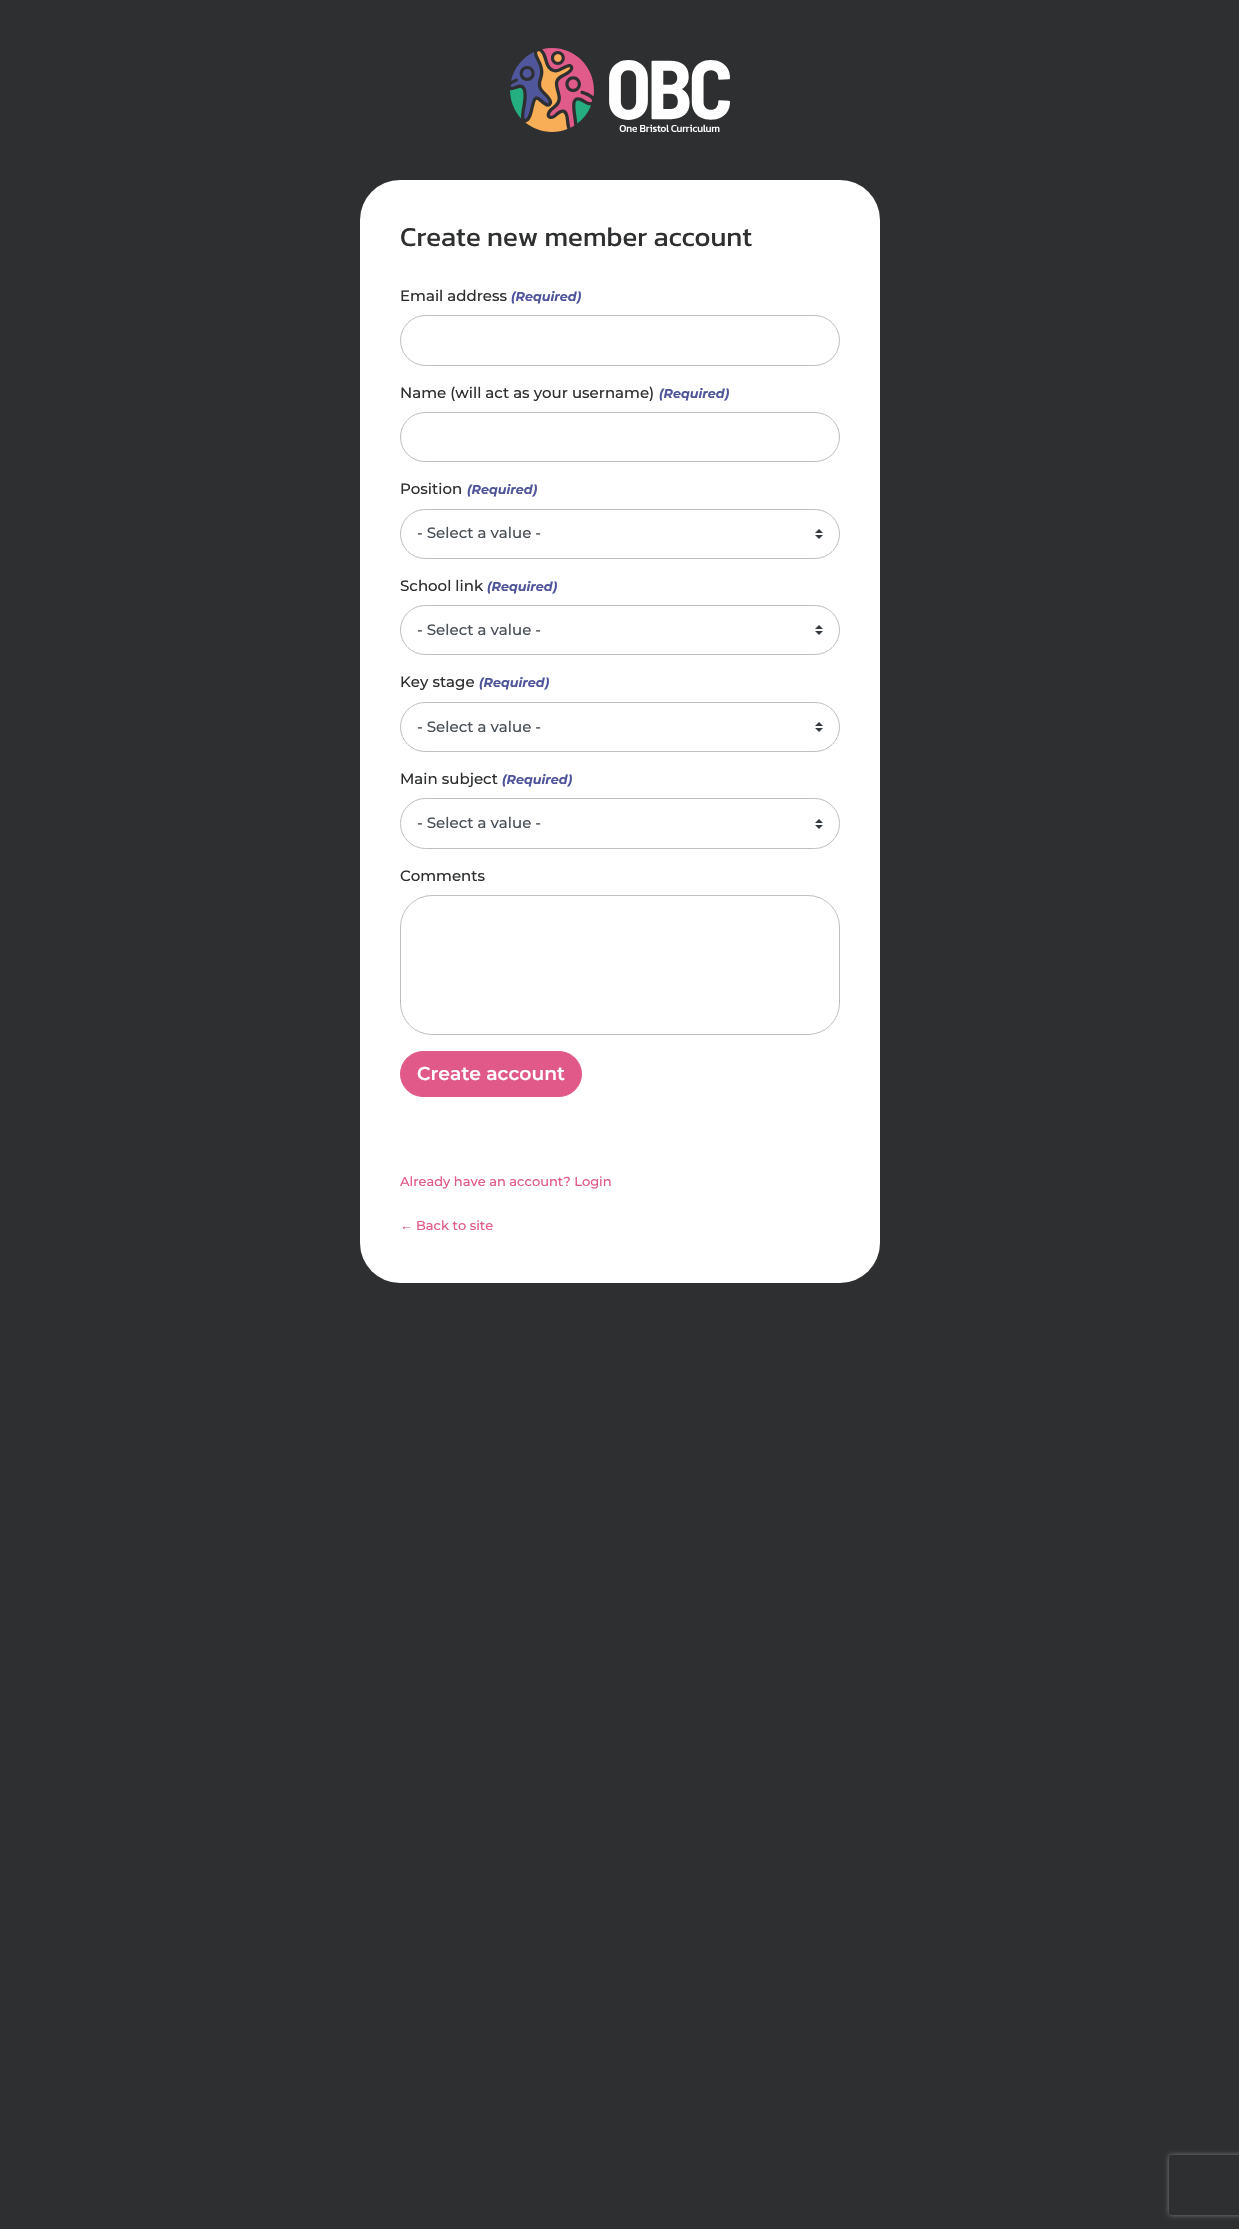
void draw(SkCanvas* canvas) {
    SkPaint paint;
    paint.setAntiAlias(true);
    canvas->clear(0xFF2E2F30);
    canvas->drawImageRect(SkImages::DeferredFromEncodedData(SkData::MakeFromFileName("img1.png")), SkRect::MakeXYWH(510, 48, 220, 84), SkSamplingOptions());
    paint.setColor(0xFFFFFFFF);
    canvas->drawRoundRect(SkRect::MakeXYWH(360, 180, 520, 1103), 40, 40, paint);
    SkFont font1(fontMgr->matchFamilyStyle("Kanit", SkFontStyle::Normal()), 27.5f);
    font1.setSubpixel(true);
    paint.setColor(0xFF2E2F30);
    canvas->drawString("Create new member account", 400, 246, font1, paint);
    SkFont font2(fontMgr->matchFamilyStyle("Montserrat", SkFontStyle(500, SkFontStyle::kNormal_Width, SkFontStyle::kUpright_Slant)), 15);
    font2.setSubpixel(true);
    canvas->drawString("Email address", 400, 301, font2, paint);
    SkFont font3(fontMgr->matchFamilyStyle("Montserrat", SkFontStyle::BoldItalic()), 12.75f);
    font3.setSubpixel(true);
    paint.setColor(0xFF4E559A);
    canvas->drawString("(Required)", 511, 301, font3, paint);
    paint.setStyle(SkPaint::kStroke_Style);
    paint.setStrokeWidth(1);
    paint.setColor(0xFFBEBEBE);
    canvas->drawRoundRect(SkRect::MakeXYWH(400.5f, 315.5f, 439, 50), 25, 25, paint);
    paint.setStyle(SkPaint::kFill_Style);
    paint.setColor(0xFF2E2F30);
    canvas->drawString("Name (will act as your username)", 400, 398, font2, paint);
    paint.setColor(0xFF4E559A);
    canvas->drawString("(Required)", 659, 398, font3, paint);
    paint.setStyle(SkPaint::kStroke_Style);
    paint.setColor(0xFFBEBEBE);
    canvas->drawRoundRect(SkRect::MakeXYWH(400.5f, 412.5f, 439, 49), 24.5f, 24.5f, paint);
    paint.setStyle(SkPaint::kFill_Style);
    paint.setColor(0xFF2E2F30);
    canvas->drawString("Position", 400, 494, font2, paint);
    paint.setColor(0xFF4E559A);
    canvas->drawString("(Required)", 467, 494, font3, paint);
    canvas->drawImageRect(SkImages::DeferredFromEncodedData(SkData::MakeFromFileName("img2.png")), SkRect::MakeXYWH(815, 529, 8, 10), SkSamplingOptions());
    paint.setStyle(SkPaint::kStroke_Style);
    paint.setColor(0xFFBEBEBE);
    canvas->drawRoundRect(SkRect::MakeXYWH(400.5f, 509.5f, 439, 49), 24.5f, 24.5f, paint);
    paint.setStyle(SkPaint::kFill_Style);
    paint.setColor(0xFF495057);
    canvas->drawString("- Select a value -", 417, 538, font2, paint);
    paint.setColor(0xFF2E2F30);
    canvas->drawString("School link", 400, 591, font2, paint);
    paint.setColor(0xFF4E559A);
    canvas->drawString("(Required)", 487, 591, font3, paint);
    canvas->drawImageRect(SkImages::DeferredFromEncodedData(SkData::MakeFromFileName("img2.png")), SkRect::MakeXYWH(815, 625, 8, 10), SkSamplingOptions());
    paint.setStyle(SkPaint::kStroke_Style);
    paint.setColor(0xFFBEBEBE);
    canvas->drawRoundRect(SkRect::MakeXYWH(400.5f, 605.5f, 439, 49), 24.5f, 24.5f, paint);
    paint.setStyle(SkPaint::kFill_Style);
    paint.setColor(0xFF495057);
    canvas->drawString("- Select a value -", 417, 635, font2, paint);
    paint.setColor(0xFF2E2F30);
    canvas->drawString("Key stage", 400, 687, font2, paint);
    paint.setColor(0xFF4E559A);
    canvas->drawString("(Required)", 479, 687, font3, paint);
    canvas->drawImageRect(SkImages::DeferredFromEncodedData(SkData::MakeFromFileName("img2.png")), SkRect::MakeXYWH(815, 722, 8, 10), SkSamplingOptions());
    paint.setStyle(SkPaint::kStroke_Style);
    paint.setColor(0xFFBEBEBE);
    canvas->drawRoundRect(SkRect::MakeXYWH(400.5f, 702.5f, 439, 49), 24.5f, 24.5f, paint);
    paint.setStyle(SkPaint::kFill_Style);
    paint.setColor(0xFF495057);
    canvas->drawString("- Select a value -", 417, 732, font2, paint);
    paint.setColor(0xFF2E2F30);
    canvas->drawString("Main subject", 400, 784, font2, paint);
    paint.setColor(0xFF4E559A);
    canvas->drawString("(Required)", 502, 784, font3, paint);
    canvas->drawImageRect(SkImages::DeferredFromEncodedData(SkData::MakeFromFileName("img2.png")), SkRect::MakeXYWH(815, 819, 8, 10), SkSamplingOptions());
    paint.setStyle(SkPaint::kStroke_Style);
    paint.setColor(0xFFBEBEBE);
    canvas->drawRoundRect(SkRect::MakeXYWH(400.5f, 798.5f, 439, 50), 25, 25, paint);
    paint.setStyle(SkPaint::kFill_Style);
    paint.setColor(0xFF495057);
    canvas->drawString("- Select a value -", 417, 828, font2, paint);
    paint.setColor(0xFF2E2F30);
    canvas->drawString("Comments", 400, 881, font2, paint);
    paint.setStyle(SkPaint::kStroke_Style);
    paint.setColor(0xFFBEBEBE);
    canvas->drawRoundRect(SkRect::MakeXYWH(400.5f, 895.5f, 439, 139), 31.5f, 31.5f, paint);
    paint.setStyle(SkPaint::kFill_Style);
    paint.setColor(0xFFE05989);
    canvas->drawRoundRect(SkRect::MakeXYWH(400.5f, 1051.5f, 181, 45), 22.5f, 22.5f, paint);
    paint.setStyle(SkPaint::kStroke_Style);
    canvas->drawRoundRect(SkRect::MakeXYWH(400.5f, 1051.5f, 181, 45), 22.5f, 22.5f, paint);
    SkFont font4(fontMgr->matchFamilyStyle("Montserrat", SkFontStyle(600, SkFontStyle::kNormal_Width, SkFontStyle::kUpright_Slant)), 18.75f);
    font4.setSubpixel(true);
    paint.setStyle(SkPaint::kFill_Style);
    paint.setColor(0xFFFFFFFF);
    canvas->drawString("Create account", 417, 1080, font4, paint);
    SkFont font5(fontMgr->matchFamilyStyle("Montserrat", SkFontStyle(500, SkFontStyle::kNormal_Width, SkFontStyle::kUpright_Slant)), 13);
    font5.setSubpixel(true);
    paint.setColor(0xFFE05989);
    canvas->drawString("Already have an account? Login", 400, 1186, font5, paint);
    SkFont font6(fontMgr->matchFamilyStyle("Liberation Sans", SkFontStyle::Normal()), 13);
    font6.setSubpixel(true);
    canvas->drawString("←", 400, 1230, font6, paint);
    canvas->drawString("Back to site", 416, 1230, font5, paint);
    canvas->save();
    canvas->clipPath(SkPathBuilder(SkPathFillType::kEvenOdd).moveTo(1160, 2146).lineTo(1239, 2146).lineTo(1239, 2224).lineTo(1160, 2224).close().moveTo(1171, 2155).lineTo(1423, 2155).cubicTo(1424, 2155, 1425, 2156, 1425, 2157).lineTo(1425, 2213).cubicTo(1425, 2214, 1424, 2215, 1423, 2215).lineTo(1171, 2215).cubicTo(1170, 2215, 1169, 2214, 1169, 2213).lineTo(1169, 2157).cubicTo(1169, 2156, 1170, 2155, 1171, 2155).close().detach(), true);
    paint.setColor(0xFF808080);
    paint.setMaskFilter(SkMaskFilter::MakeBlur(kNormal_SkBlurStyle, 2.5f));
    canvas->drawRoundRect(SkRect::MakeXYWH(1169, 2155, 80, 60), 2, 2, paint);
    paint.setMaskFilter(nullptr);
    canvas->restore();
}
